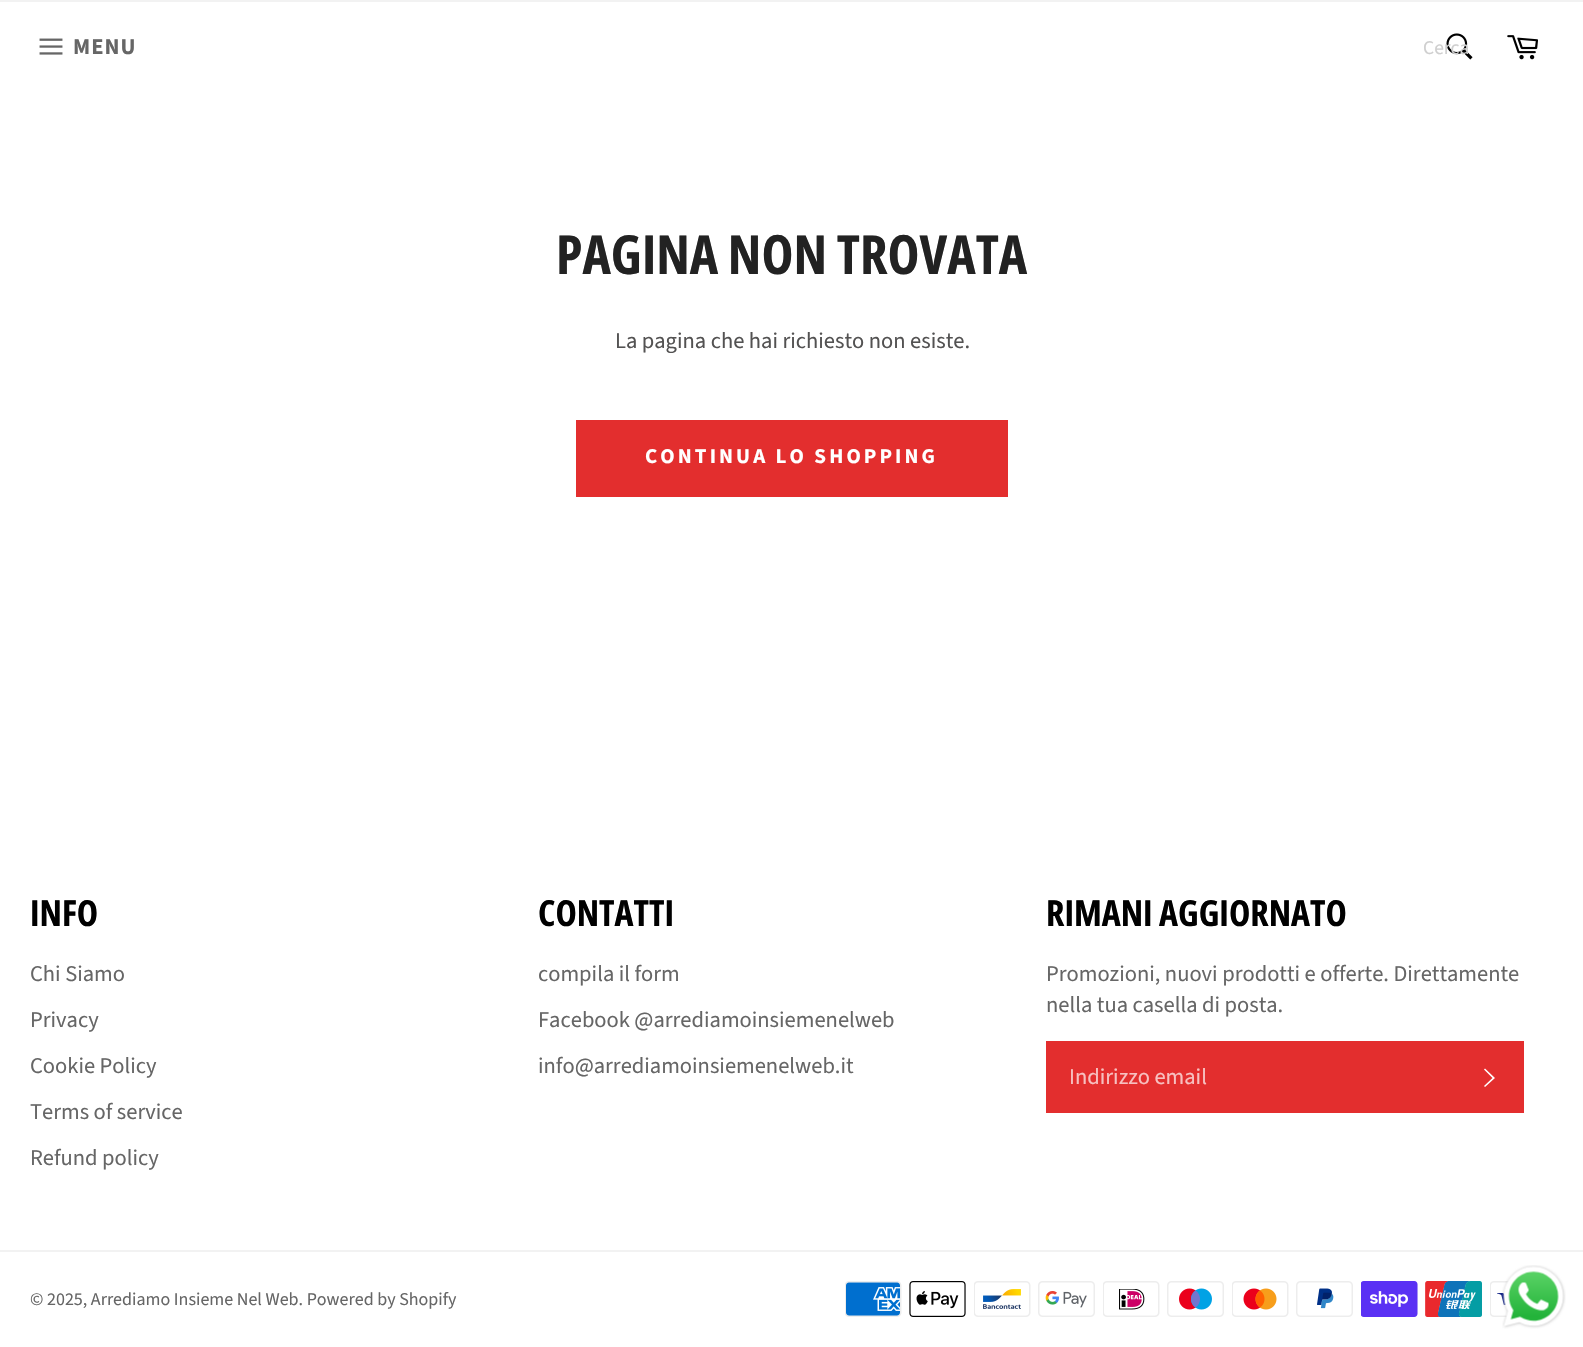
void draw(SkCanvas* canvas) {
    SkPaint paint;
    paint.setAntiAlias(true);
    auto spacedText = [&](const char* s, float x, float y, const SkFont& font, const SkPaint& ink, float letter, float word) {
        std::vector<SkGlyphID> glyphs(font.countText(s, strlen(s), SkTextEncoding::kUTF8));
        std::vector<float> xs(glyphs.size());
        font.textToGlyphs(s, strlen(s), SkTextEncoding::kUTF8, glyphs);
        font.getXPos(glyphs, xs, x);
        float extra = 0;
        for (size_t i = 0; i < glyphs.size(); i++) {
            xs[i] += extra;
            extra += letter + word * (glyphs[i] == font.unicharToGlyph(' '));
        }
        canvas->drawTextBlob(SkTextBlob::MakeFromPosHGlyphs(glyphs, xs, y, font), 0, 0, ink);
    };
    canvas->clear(0xFFFFFFFF);
    paint.setColor(0xFFF2F2F2);
    canvas->drawRect(SkRect::MakeXYWH(0, 0, 1583, 2), paint);
    canvas->drawImageRect(SkImages::DeferredFromEncodedData(SkData::MakeFromFileName("img1.png")), SkRect::MakeXYWH(39, 38, 24, 17), SkSamplingOptions());
    SkFont font1(fontMgr->matchFamilyStyle("Source Sans Pro", SkFontStyle::Bold()), 22.5f);
    font1.setSubpixel(true);
    paint.setColor(0xFF666666);
    spacedText("MENU", 73, 54, font1, paint, 1, 0);
    canvas->drawImageRect(SkImages::DeferredFromEncodedData(SkData::MakeFromFileName("img2.png")), SkRect::MakeXYWH(1446, 33, 27, 27), SkSamplingOptions());
    SkFont font2(fontMgr->matchFamilyStyle("Source Sans Pro", SkFontStyle::Normal()), 19.5f);
    font2.setSubpixel(true);
    paint.setColor(0xFFCFCFCF);
    canvas->drawString("Cerca", 1423, 54, font2, paint);
    canvas->drawImageRect(SkImages::DeferredFromEncodedData(SkData::MakeFromFileName("img3.png")), SkRect::MakeXYWH(1507, 35, 31, 25), SkSamplingOptions());
    SkFont font3(fontMgr->matchFamilyStyle("Open Sans Condensed", SkFontStyle::Bold()), 54);
    font3.setSubpixel(true);
    paint.setColor(0xFF222222);
    canvas->drawString("PAGINA NON TROVATA", 556, 274, font3, paint);
    SkFont font4(fontMgr->matchFamilyStyle("Source Sans Pro", SkFontStyle::Normal()), 22.5f);
    font4.setSubpixel(true);
    paint.setColor(0xFF535252);
    canvas->drawString("La pagina che hai richiesto non esiste.", 615, 348, font4, paint);
    paint.setColor(0xFFE32E2E);
    canvas->drawRect(SkRect::MakeXYWH(576, 420, 432, 77), paint);
    SkFont font5(fontMgr->matchFamilyStyle("Source Sans Pro", SkFontStyle::Bold()), 21);
    font5.setSubpixel(true);
    paint.setColor(0xFFFFFFFF);
    spacedText("CONTINUA LO SHOPPING", 645, 463, font5, paint, 3.1f, 0);
    SkFont font6(fontMgr->matchFamilyStyle("Open Sans Condensed", SkFontStyle::Bold()), 36);
    font6.setSubpixel(true);
    paint.setColor(0xFF000000);
    canvas->drawString("INFO", 30, 926, font6, paint);
    paint.setColor(0xFF666666);
    canvas->drawString("Chi Siamo", 30, 981, font4, paint);
    canvas->drawString("Privacy", 30, 1027, font4, paint);
    canvas->drawString("Cookie Policy", 30, 1073, font4, paint);
    canvas->drawString("Terms of service", 30, 1119, font4, paint);
    canvas->drawString("Refund policy", 30, 1165, font4, paint);
    paint.setColor(0xFF000000);
    canvas->drawString("CONTATTI", 538, 926, font6, paint);
    paint.setColor(0xFF666666);
    canvas->drawString("compila il form", 538, 981, font4, paint);
    canvas->drawString("Facebook @arrediamoinsiemenelweb", 538, 1027, font4, paint);
    canvas->drawString("info@arrediamoinsiemenelweb.it", 538, 1073, font4, paint);
    paint.setColor(0xFF000000);
    canvas->drawString("RIMANI AGGIORNATO", 1046, 926, font6, paint);
    paint.setColor(0xFF666666);
    canvas->drawString("Promozioni, nuovi prodotti e offerte. Direttamente", 1046, 981, font4, paint);
    canvas->drawString("nella tua casella di posta.", 1046, 1012, font4, paint);
    paint.setColor(0xFFE32E2E);
    canvas->drawRect(SkRect::MakeXYWH(1046, 1041, 478, 72), paint);
    paint.setColor(0xFFF7C0C0);
    canvas->drawString("Indirizzo email", 1069, 1084, font4, paint);
    paint.setColor(0xFFFFFFFF);
    canvas->drawPath(SkPathBuilder().moveTo(1484, 1069.5f).lineTo(1485, 1068.5f).lineTo(1495, 1078).lineTo(1485, 1087).lineTo(1484, 1086).lineTo(1492.5f, 1078).close().detach(), paint);
    paint.setColor(0xFFF2F2F2);
    canvas->drawRect(SkRect::MakeXYWH(0, 1250, 1583, 2), paint);
    SkFont font7(fontMgr->matchFamilyStyle("Source Sans Pro", SkFontStyle::Normal()), 18);
    font7.setSubpixel(true);
    paint.setColor(0xFF666666);
    canvas->drawString("© 2025, Arrediamo Insieme Nel Web. Powered by Shopify", 30, 1305, font7, paint);
    canvas->drawImageRect(SkImages::DeferredFromEncodedData(SkData::MakeFromFileName("img4.png")), SkRect::MakeXYWH(845, 1281, 57, 36), SkSamplingOptions());
    canvas->drawImageRect(SkImages::DeferredFromEncodedData(SkData::MakeFromFileName("img5.png")), SkRect::MakeXYWH(909, 1281, 57, 36), SkSamplingOptions());
    canvas->drawImageRect(SkImages::DeferredFromEncodedData(SkData::MakeFromFileName("img6.png")), SkRect::MakeXYWH(974, 1281, 57, 36), SkSamplingOptions());
    canvas->drawImageRect(SkImages::DeferredFromEncodedData(SkData::MakeFromFileName("img7.png")), SkRect::MakeXYWH(1038, 1281, 57, 36), SkSamplingOptions());
    canvas->drawImageRect(SkImages::DeferredFromEncodedData(SkData::MakeFromFileName("img8.png")), SkRect::MakeXYWH(1103, 1281, 57, 36), SkSamplingOptions());
    canvas->drawImageRect(SkImages::DeferredFromEncodedData(SkData::MakeFromFileName("img9.png")), SkRect::MakeXYWH(1167, 1281, 57, 36), SkSamplingOptions());
    canvas->drawImageRect(SkImages::DeferredFromEncodedData(SkData::MakeFromFileName("img10.png")), SkRect::MakeXYWH(1232, 1281, 57, 36), SkSamplingOptions());
    canvas->drawImageRect(SkImages::DeferredFromEncodedData(SkData::MakeFromFileName("img11.png")), SkRect::MakeXYWH(1296, 1281, 57, 36), SkSamplingOptions());
    canvas->drawImageRect(SkImages::DeferredFromEncodedData(SkData::MakeFromFileName("img12.png")), SkRect::MakeXYWH(1361, 1281, 57, 36), SkSamplingOptions());
    canvas->drawImageRect(SkImages::DeferredFromEncodedData(SkData::MakeFromFileName("img13.png")), SkRect::MakeXYWH(1425, 1281, 57, 36), SkSamplingOptions());
    canvas->drawImageRect(SkImages::DeferredFromEncodedData(SkData::MakeFromFileName("img14.png")), SkRect::MakeXYWH(1490, 1281, 19, 36), SkSamplingOptions());
    canvas->drawImageRect(SkImages::DeferredFromEncodedData(SkData::MakeFromFileName("img15.png")), SkRect::MakeXYWH(1502, 1265, 64, 64), SkSamplingOptions());
}
